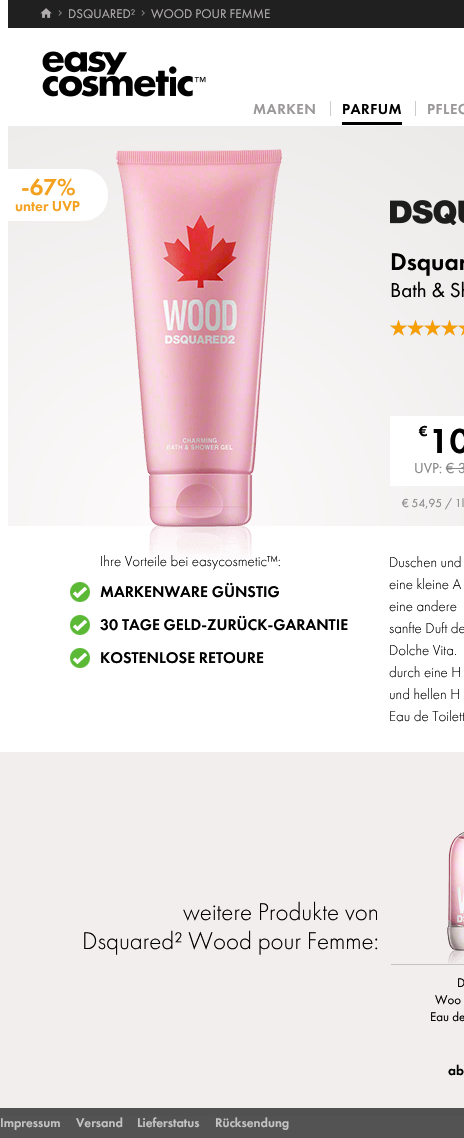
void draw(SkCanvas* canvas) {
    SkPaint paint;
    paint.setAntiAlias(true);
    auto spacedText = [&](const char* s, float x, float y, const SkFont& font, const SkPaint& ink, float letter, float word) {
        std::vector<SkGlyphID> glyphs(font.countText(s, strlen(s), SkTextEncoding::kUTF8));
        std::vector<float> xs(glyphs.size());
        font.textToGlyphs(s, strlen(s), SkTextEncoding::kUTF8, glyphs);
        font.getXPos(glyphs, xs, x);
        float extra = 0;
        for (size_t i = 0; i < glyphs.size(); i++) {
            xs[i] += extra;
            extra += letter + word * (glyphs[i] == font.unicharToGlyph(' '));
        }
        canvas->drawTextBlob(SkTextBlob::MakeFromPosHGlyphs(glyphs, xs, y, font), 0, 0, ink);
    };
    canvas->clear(0xFFFFFFFF);
    paint.setColor(0xFF535353);
    canvas->drawRect(SkRect::MakeXYWH(0, 1116, 464, 22), paint);
    paint.setColor(0xFF202020);
    canvas->drawRect(SkRect::MakeXYWH(8, 0, 456, 28), paint);
    canvas->drawImageRect(SkImages::DeferredFromEncodedData(SkData::MakeFromFileName("img1.png")), SkRect::MakeXYWH(40, 8, 12, 10), SkSamplingOptions());
    canvas->drawImageRect(SkImages::DeferredFromEncodedData(SkData::MakeFromFileName("img2.png")), SkRect::MakeXYWH(58, 10, 4, 6), SkSamplingOptions());
    SkFont font1(fontMgr->matchFamilyStyle("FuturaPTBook", SkFontStyle::Normal()), 13);
    font1.setSubpixel(true);
    paint.setColor(0xFFB0ACAE);
    canvas->drawString("DSQUARED²", 68, 18, font1, paint);
    canvas->drawImageRect(SkImages::DeferredFromEncodedData(SkData::MakeFromFileName("img2.png")), SkRect::MakeXYWH(141, 10, 4, 6), SkSamplingOptions());
    canvas->drawString("WOOD POUR FEMME", 151, 18, font1, paint);
    canvas->drawImageRect(SkImages::DeferredFromEncodedData(SkData::MakeFromFileName("img3.png")), SkRect::MakeXYWH(42, 51, 164, 46), SkSamplingOptions());
    SkFont font2(fontMgr->matchFamilyStyle("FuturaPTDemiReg", SkFontStyle::Normal()), 15);
    font2.setSubpixel(true);
    paint.setColor(0xFF9B9899);
    spacedText("MARKEN", 253, 114, font2, paint, 0.5f, 0);
    paint.setColor(0xFFCCCCCC);
    canvas->drawRect(SkRect::MakeXYWH(330, 101, 1, 15), paint);
    paint.setColor(0xFF000000);
    spacedText("PARFUM", 342, 114, font2, paint, 0.5f, 0);
    canvas->drawRect(SkRect::MakeXYWH(342, 122, 60, 3), paint);
    paint.setColor(0xFFCCCCCC);
    canvas->drawRect(SkRect::MakeXYWH(415, 101, 1, 15), paint);
    paint.setColor(0xFF9B9899);
    spacedText("PFLEG", 427, 114, font2, paint, 0.5f, 0);
    {
        const SkColor colors[] = {0xFFFDFBFB, 0xFFEDEBEA, 0xFFD5D4D2};
        const float stops[] = {0, 0.5f, 1};
        paint.setShader(SkGradientShader::MakeRadial({177, 526}, 917, colors, stops, 3, SkTileMode::kClamp));
        paint.setAlpha(255);
    }
    canvas->drawRect(SkRect::MakeXYWH(8, 126, 456, 400), paint);
    paint.setShader(nullptr);
    paint.setColor(0xFFFFFFFF);
    canvas->drawPath(SkPathBuilder().moveTo(-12, 169).lineTo(83, 169).cubicTo(97, 169, 108, 180, 108, 194).lineTo(108, 196).cubicTo(108, 210, 97, 221, 83, 221).lineTo(-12, 221).close().detach(), paint);
    SkFont font3(fontMgr->matchFamilyStyle("FuturaPTDemiReg", SkFontStyle::Normal()), 24);
    font3.setSubpixel(true);
    paint.setColor(0xFFF4A11F);
    canvas->drawString("-67%", 21, 195, font3, paint);
    canvas->drawString("unter UVP", 15, 211, font2, paint);
    canvas->drawImageRect(SkImages::DeferredFromEncodedData(SkData::MakeFromFileName("img4.png")), SkRect::MakeXYWH(116, 149, 166, 412), SkSamplingOptions());
    canvas->drawImageRect(SkImages::DeferredFromEncodedData(SkData::MakeFromFileName("img5.png")), SkRect::MakeXYWH(390, 200, 74, 25), SkSamplingOptions());
    SkFont font4(fontMgr->matchFamilyStyle("FuturaPTDemiReg", SkFontStyle::Normal()), 25);
    font4.setSubpixel(true);
    paint.setColor(0xFF000000);
    canvas->drawString("Dsquar", 390, 270, font4, paint);
    SkFont font5(fontMgr->matchFamilyStyle("FuturaPTBook", SkFontStyle::Normal()), 21);
    font5.setSubpixel(true);
    canvas->drawString("Bath & Sh", 390, 297, font5, paint);
    canvas->drawImageRect(SkImages::DeferredFromEncodedData(SkData::MakeFromFileName("img6.png")), SkRect::MakeXYWH(390, 319, 17, 17), SkSamplingOptions());
    canvas->drawImageRect(SkImages::DeferredFromEncodedData(SkData::MakeFromFileName("img7.png")), SkRect::MakeXYWH(407, 319, 17, 17), SkSamplingOptions());
    canvas->drawImageRect(SkImages::DeferredFromEncodedData(SkData::MakeFromFileName("img8.png")), SkRect::MakeXYWH(424, 319, 17, 17), SkSamplingOptions());
    canvas->drawImageRect(SkImages::DeferredFromEncodedData(SkData::MakeFromFileName("img9.png")), SkRect::MakeXYWH(441, 319, 17, 17), SkSamplingOptions());
    canvas->drawImageRect(SkImages::DeferredFromEncodedData(SkData::MakeFromFileName("img10.png")), SkRect::MakeXYWH(458, 325, 6, 11), SkSamplingOptions());
    paint.setColor(0xFFFFFFFF);
    canvas->drawRect(SkRect::MakeXYWH(390, 416, 74, 70), paint);
    paint.setColor(0xFF000000);
    canvas->drawString("€", 419, 436, font2, paint);
    SkFont font6(fontMgr->matchFamilyStyle("FuturaPTDemiReg", SkFontStyle::Normal()), 36);
    font6.setSubpixel(true);
    canvas->drawString("10", 429, 453, font6, paint);
    SkFont font7(fontMgr->matchFamilyStyle("FuturaPTBook", SkFontStyle::Normal()), 15);
    font7.setSubpixel(true);
    paint.setColor(0xFF868686);
    canvas->drawString("UVP: € 3", 414, 473, font7, paint);
    canvas->drawRect(SkRect::MakeXYWH(446, 468, 18, 1), paint);
    SkFont font8(fontMgr->matchFamilyStyle("FuturaPTBook", SkFontStyle::Normal()), 12);
    font8.setSubpixel(true);
    canvas->drawString("€ 54,95 / 1l", 402, 507, font8, paint);
    SkFont font9(fontMgr->matchFamilyStyle("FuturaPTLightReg", SkFontStyle(300, SkFontStyle::kNormal_Width, SkFontStyle::kUpright_Slant)), 15);
    font9.setSubpixel(true);
    paint.setColor(0xFF000000);
    canvas->drawString("Ihre Vorteile bei easycosmetic™:", 100, 566, font9, paint);
    canvas->drawImageRect(SkImages::DeferredFromEncodedData(SkData::MakeFromFileName("img11.png")), SkRect::MakeXYWH(70, 582, 20, 20), SkSamplingOptions());
    SkFont font10(fontMgr->matchFamilyStyle("FuturaPTDemiReg", SkFontStyle::Normal()), 16);
    font10.setSubpixel(true);
    canvas->drawString("MARKENWARE GÜNSTIG", 100, 597, font10, paint);
    canvas->drawImageRect(SkImages::DeferredFromEncodedData(SkData::MakeFromFileName("img11.png")), SkRect::MakeXYWH(70, 615, 20, 20), SkSamplingOptions());
    canvas->drawString("30 TAGE GELD-ZURÜCK-GARANTIE", 100, 630, font10, paint);
    canvas->drawImageRect(SkImages::DeferredFromEncodedData(SkData::MakeFromFileName("img11.png")), SkRect::MakeXYWH(70, 648, 20, 20), SkSamplingOptions());
    canvas->drawString("KOSTENLOSE RETOURE", 100, 663, font10, paint);
    canvas->drawString("Duschen und", 389, 567, font9, paint);
    canvas->drawString("eine kleine A", 389, 589, font9, paint);
    canvas->drawString("eine andere", 389, 611, font9, paint);
    canvas->drawString("sanfte Duft de", 389, 633, font9, paint);
    canvas->drawString("Dolche Vita.", 389, 655, font9, paint);
    canvas->drawString("durch eine H", 389, 677, font9, paint);
    canvas->drawString("und hellen H", 389, 699, font9, paint);
    canvas->drawString("Eau de Toilett", 389, 721, font9, paint);
    paint.setColor(0xFFF2EEED);
    canvas->drawRect(SkRect::MakeXYWH(0, 752, 464, 356), paint);
    paint.setColor(0xFF525151);
    canvas->drawRect(SkRect::MakeXYWH(0, 1108, 464, 8), paint);
    SkFont font11(fontMgr->matchFamilyStyle("FuturaPTLightReg", SkFontStyle(300, SkFontStyle::kNormal_Width, SkFontStyle::kUpright_Slant)), 25);
    font11.setSubpixel(true);
    paint.setColor(0xFF000000);
    canvas->drawString("weitere Produkte von", 183, 920, font11, paint);
    canvas->drawString("Dsquared² Wood pour Femme:", 82, 949, font11, paint);
    canvas->drawImageRect(SkImages::DeferredFromEncodedData(SkData::MakeFromFileName("img12.png")), SkRect::MakeXYWH(447, 832, 17, 132), SkSamplingOptions());
    paint.setColor(0xFFC3C3C3);
    canvas->drawRect(SkRect::MakeXYWH(391, 964, 73, 1), paint);
    paint.setColor(0xFF000000);
    canvas->drawString("D", 457, 987, font1, paint);
    canvas->drawString("Woo", 435, 1004, font1, paint);
    canvas->drawString("Eau de", 430, 1021, font1, paint);
    SkFont font12(fontMgr->matchFamilyStyle("FuturaPTDemiReg", SkFontStyle::Normal()), 14);
    font12.setSubpixel(true);
    canvas->drawString("ab", 448, 1075, font12, paint);
    SkFont font13(fontMgr->matchFamilyStyle("FuturaPTDemiReg", SkFontStyle::Normal()), 13);
    font13.setSubpixel(true);
    paint.setColor(0xFFC3C3C3);
    canvas->drawString("Impressum", 0, 1127, font13, paint);
    canvas->drawString("Versand", 76, 1127, font13, paint);
    canvas->drawString("Lieferstatus", 137, 1127, font13, paint);
    canvas->drawString("Rücksendung", 215, 1127, font13, paint);
}
